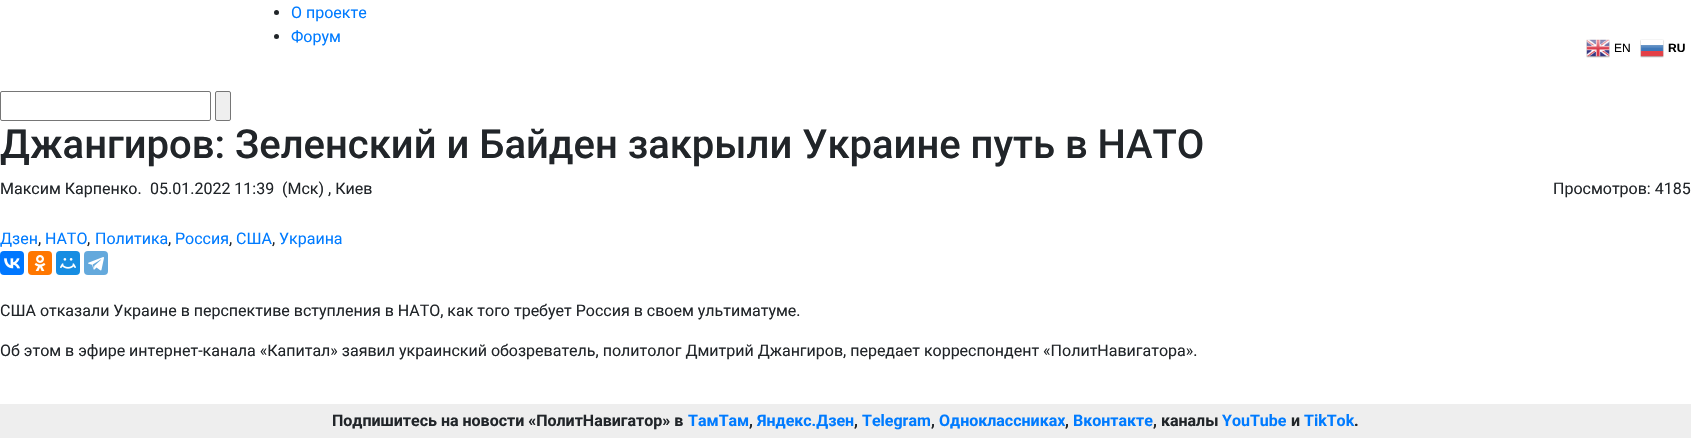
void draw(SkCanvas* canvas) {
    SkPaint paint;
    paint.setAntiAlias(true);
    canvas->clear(0xFFFFFFFF);
    paint.setColor(0xFF212529);
    canvas->drawCircle(276.5f, 12.5f, 2.5f, paint);
    SkFont font1(fontMgr->matchFamilyStyle("Roboto", SkFontStyle::Normal()), 16);
    font1.setSubpixel(true);
    paint.setColor(0xFF007BFF);
    canvas->drawString("О проекте", 291, 18, font1, paint);
    paint.setColor(0xFF212529);
    canvas->drawCircle(276.5f, 36.5f, 2.5f, paint);
    paint.setColor(0xFF007BFF);
    canvas->drawString("Форум", 291, 42, font1, paint);
    canvas->drawImageRect(SkImages::DeferredFromEncodedData(SkData::MakeFromFileName("img1.png")), SkRect::MakeXYWH(1586, 39, 24, 19), SkSamplingOptions());
    SkFont font2(fontMgr->matchFamilyStyle("Liberation Sans", SkFontStyle::Normal()), 12);
    font2.setSubpixel(true);
    paint.setColor(0xFF000000);
    canvas->drawString("EN", 1614, 52, font2, paint);
    canvas->drawImageRect(SkImages::DeferredFromEncodedData(SkData::MakeFromFileName("img2.png")), SkRect::MakeXYWH(1640, 39, 24, 19), SkSamplingOptions());
    SkFont font3(fontMgr->matchFamilyStyle("Liberation Sans", SkFontStyle::Bold()), 12);
    font3.setSubpixel(true);
    canvas->drawString("RU", 1668, 52, font3, paint);
    paint.setStyle(SkPaint::kStroke_Style);
    paint.setStrokeWidth(1);
    paint.setColor(0xFF767676);
    canvas->drawRoundRect(SkRect::MakeXYWH(0.5f, 91.5f, 210, 29), 1.5f, 1.5f, paint);
    paint.setStyle(SkPaint::kFill_Style);
    paint.setColor(0xFFEFEFEF);
    canvas->drawRoundRect(SkRect::MakeXYWH(215.5f, 91.5f, 15, 29), 1.5f, 1.5f, paint);
    paint.setStyle(SkPaint::kStroke_Style);
    paint.setColor(0xFF767676);
    canvas->drawRoundRect(SkRect::MakeXYWH(215.5f, 91.5f, 15, 29), 1.5f, 1.5f, paint);
    SkFont font4(fontMgr->matchFamilyStyle("Roboto", SkFontStyle(500, SkFontStyle::kNormal_Width, SkFontStyle::kUpright_Slant)), 40);
    font4.setSubpixel(true);
    paint.setStyle(SkPaint::kFill_Style);
    paint.setColor(0xFF212529);
    canvas->drawString("Джангиров: Зеленский и Байден закрыли Украине путь в НАТО", 0, 158, font4, paint);
    canvas->drawString("Максим Карпенко.", 0, 194, font1, paint);
    canvas->drawString("05.01.2022 11:39", 150, 194, font1, paint);
    canvas->drawString("(Мск) , Киев", 282, 194, font1, paint);
    canvas->drawString("Просмотров: 4185", 1553, 194, font1, paint);
    paint.setColor(0xFF007BFF);
    canvas->drawString("Дзен", 0, 244, font1, paint);
    paint.setColor(0xFF212529);
    canvas->drawString(",", 38, 244, font1, paint);
    paint.setColor(0xFF007BFF);
    canvas->drawString("НАТО", 45, 244, font1, paint);
    paint.setColor(0xFF212529);
    canvas->drawString(",", 87, 244, font1, paint);
    paint.setColor(0xFF007BFF);
    canvas->drawString("Политика", 95, 244, font1, paint);
    paint.setColor(0xFF212529);
    canvas->drawString(",", 168, 244, font1, paint);
    paint.setColor(0xFF007BFF);
    canvas->drawString("Россия", 175, 244, font1, paint);
    paint.setColor(0xFF212529);
    canvas->drawString(",", 229, 244, font1, paint);
    paint.setColor(0xFF007BFF);
    canvas->drawString("США", 236, 244, font1, paint);
    paint.setColor(0xFF212529);
    canvas->drawString(",", 272, 244, font1, paint);
    paint.setColor(0xFF007BFF);
    canvas->drawString("Украина", 279, 244, font1, paint);
    paint.setColor(0xFF0077FF);
    canvas->drawRoundRect(SkRect::MakeXYWH(0, 251, 24, 24), 4, 4, paint);
    canvas->drawImageRect(SkImages::DeferredFromEncodedData(SkData::MakeFromFileName("img3.png")), SkRect::MakeXYWH(4, 258, 16, 11), SkSamplingOptions());
    paint.setColor(0xFFFF7700);
    canvas->drawRoundRect(SkRect::MakeXYWH(28, 251, 24, 24), 4, 4, paint);
    canvas->drawImageRect(SkImages::DeferredFromEncodedData(SkData::MakeFromFileName("img4.png")), SkRect::MakeXYWH(34, 255, 12, 16), SkSamplingOptions());
    paint.setColor(0xFF168DE2);
    canvas->drawRoundRect(SkRect::MakeXYWH(56, 251, 24, 24), 4, 4, paint);
    canvas->drawImageRect(SkImages::DeferredFromEncodedData(SkData::MakeFromFileName("img5.png")), SkRect::MakeXYWH(60, 258, 16, 11), SkSamplingOptions());
    paint.setColor(0xFF64A9DC);
    canvas->drawRoundRect(SkRect::MakeXYWH(84, 251, 24, 24), 4, 4, paint);
    canvas->drawImageRect(SkImages::DeferredFromEncodedData(SkData::MakeFromFileName("img6.png")), SkRect::MakeXYWH(88, 257, 16, 14), SkSamplingOptions());
    paint.setColor(0xFF212529);
    canvas->drawString("США отказали Украине в перспективе вступления в НАТО, как того требует Россия в своем ультиматуме.", 0, 316, font1, paint);
    canvas->drawString("Об этом в эфире интернет-канала «Капитал» заявил украинский обозреватель, политолог Дмитрий Джангиров, передает корреспондент «ПолитНавигатора».", 0, 356, font1, paint);
    paint.setColor(0xFFEEEEEE);
    canvas->drawRect(SkRect::MakeXYWH(0, 404, 1691, 34), paint);
    SkFont font5(fontMgr->matchFamilyStyle("Roboto", SkFontStyle::Bold()), 16);
    font5.setSubpixel(true);
    paint.setColor(0xFF212529);
    canvas->drawString("Подпишитесь на новости «ПолитНавигатор» в", 332, 426, font5, paint);
    paint.setColor(0xFF007BFF);
    canvas->drawString("ТамТам", 688, 426, font5, paint);
    paint.setColor(0xFF212529);
    canvas->drawString(",", 749, 426, font5, paint);
    paint.setColor(0xFF007BFF);
    canvas->drawString("Яндекс.Дзен", 757, 426, font5, paint);
    paint.setColor(0xFF212529);
    canvas->drawString(",", 854, 426, font5, paint);
    paint.setColor(0xFF007BFF);
    canvas->drawString("Telegram", 862, 426, font5, paint);
    paint.setColor(0xFF212529);
    canvas->drawString(",", 931, 426, font5, paint);
    paint.setColor(0xFF007BFF);
    canvas->drawString("Одноклассниках", 939, 426, font5, paint);
    paint.setColor(0xFF212529);
    canvas->drawString(",", 1065, 426, font5, paint);
    paint.setColor(0xFF007BFF);
    canvas->drawString("Вконтакте", 1073, 426, font5, paint);
    paint.setColor(0xFF212529);
    canvas->drawString(", каналы", 1153, 426, font5, paint);
    paint.setColor(0xFF007BFF);
    canvas->drawString("YouTube", 1222, 426, font5, paint);
    paint.setColor(0xFF212529);
    canvas->drawString("и", 1291, 426, font5, paint);
    paint.setColor(0xFF007BFF);
    canvas->drawString("TikTok", 1304, 426, font5, paint);
    paint.setColor(0xFF212529);
    canvas->drawString(".", 1354, 426, font5, paint);
}
